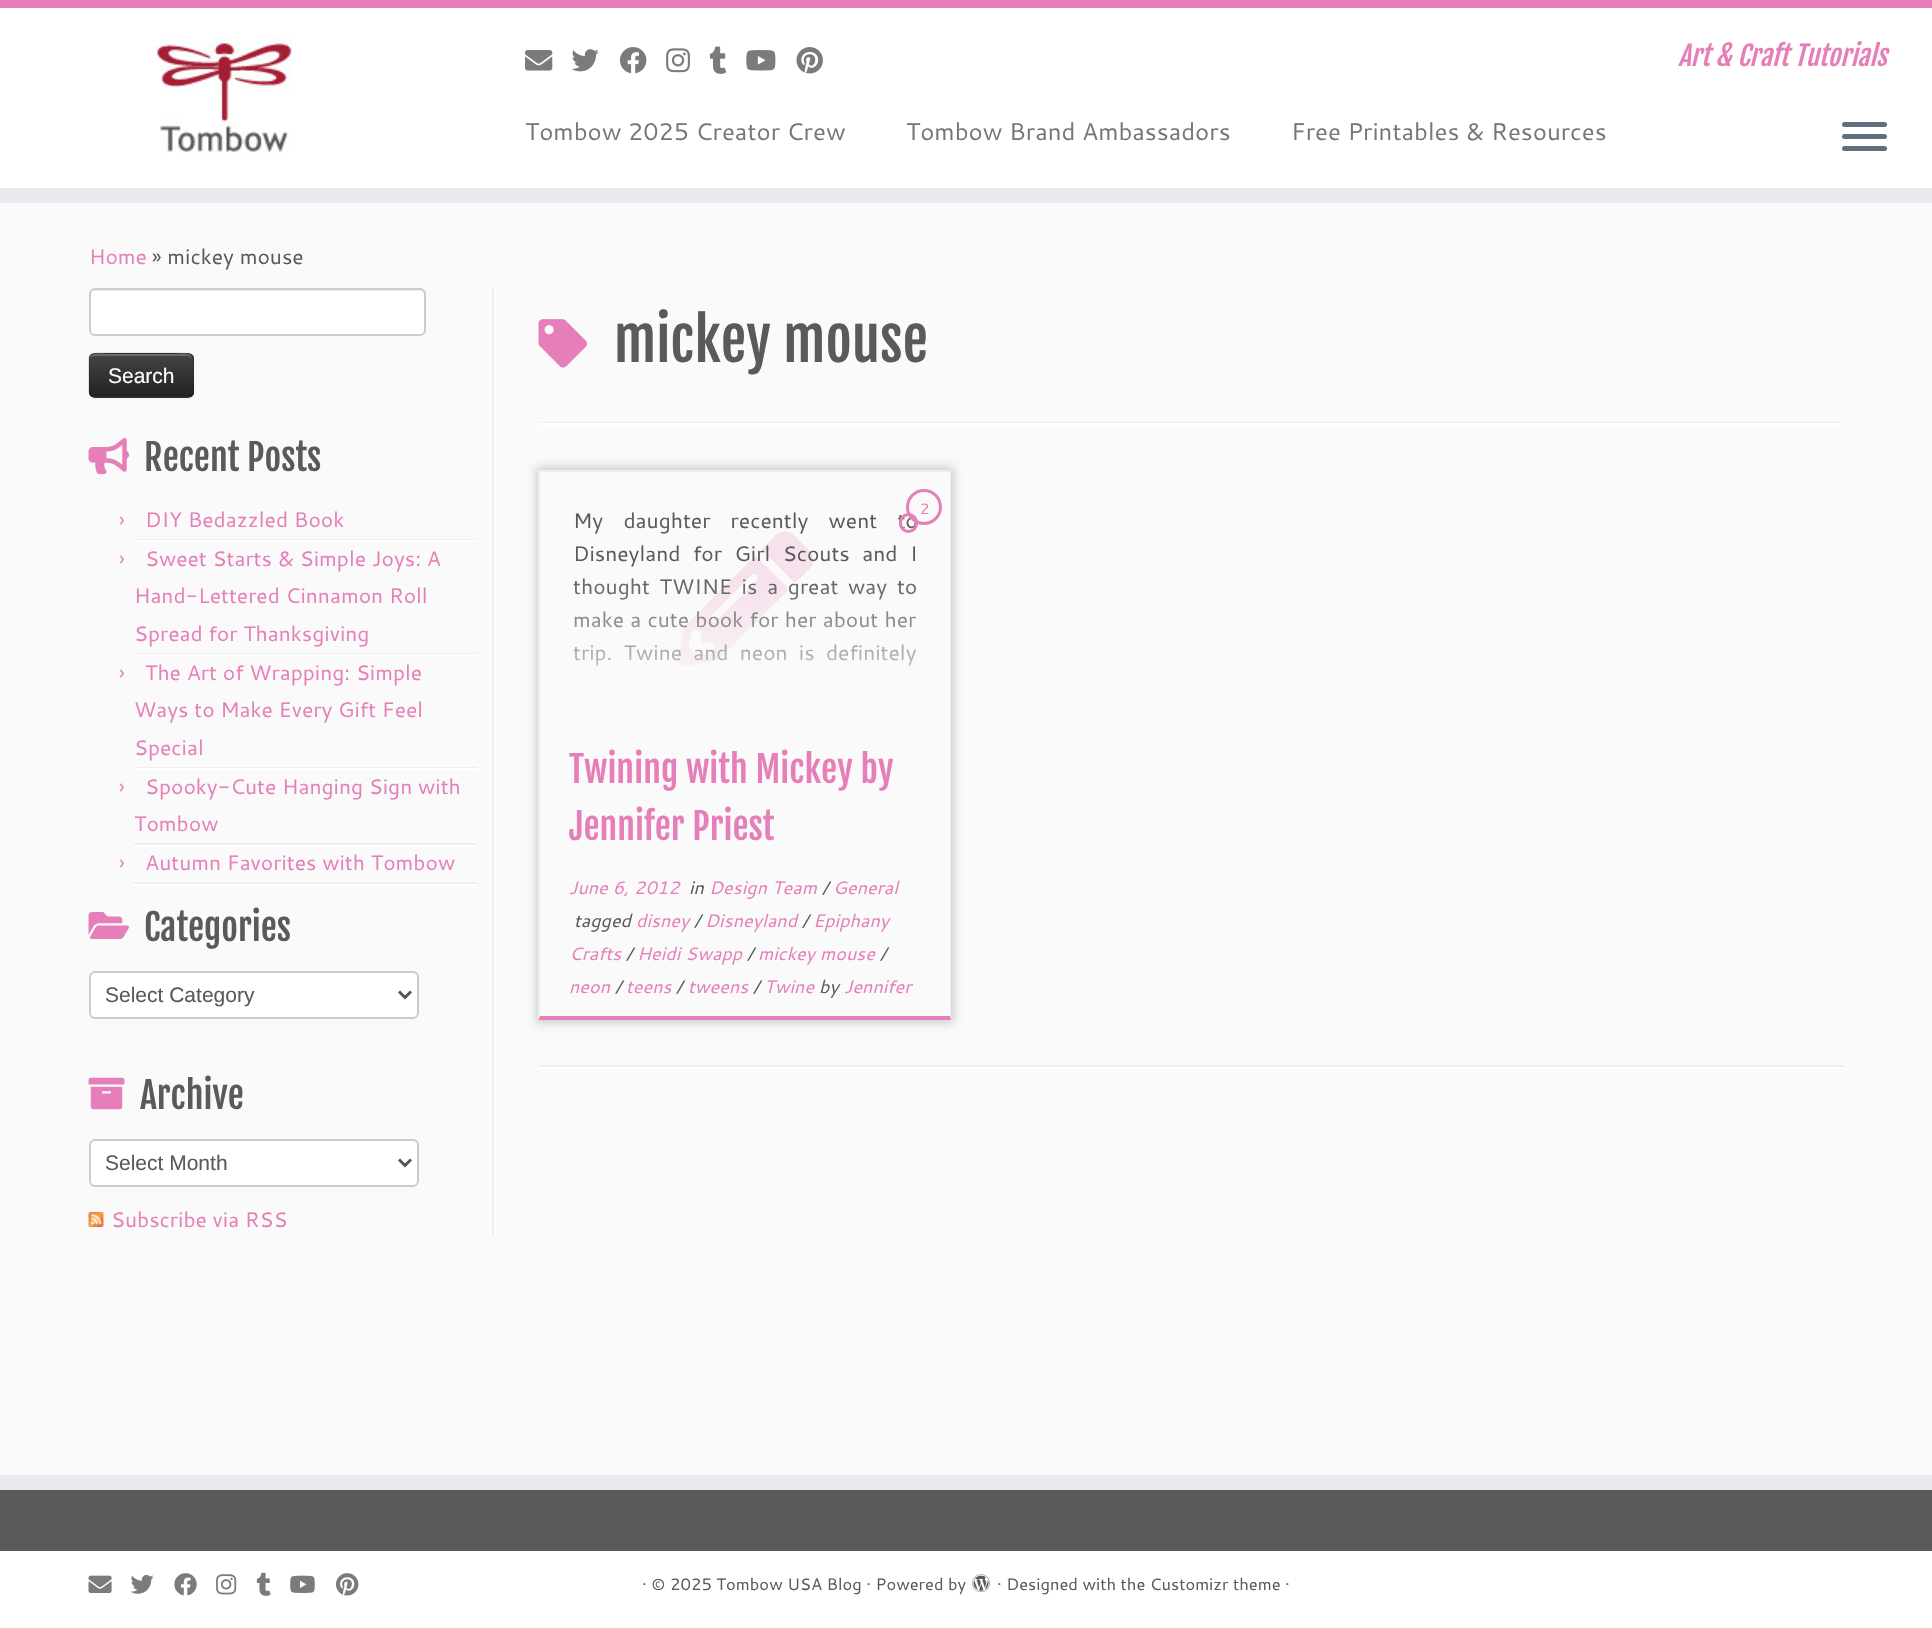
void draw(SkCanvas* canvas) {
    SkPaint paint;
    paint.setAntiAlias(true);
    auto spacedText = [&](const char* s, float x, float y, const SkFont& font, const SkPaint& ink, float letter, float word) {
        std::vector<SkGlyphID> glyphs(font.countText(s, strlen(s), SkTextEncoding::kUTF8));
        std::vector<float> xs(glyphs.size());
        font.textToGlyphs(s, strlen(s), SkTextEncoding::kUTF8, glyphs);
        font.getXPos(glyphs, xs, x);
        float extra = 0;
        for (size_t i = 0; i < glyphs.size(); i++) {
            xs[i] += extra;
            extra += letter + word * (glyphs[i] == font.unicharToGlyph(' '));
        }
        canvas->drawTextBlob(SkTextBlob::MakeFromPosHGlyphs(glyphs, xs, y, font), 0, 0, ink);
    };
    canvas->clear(0xFFFAFAFA);
    paint.setColor(0xFFFFFFFF);
    canvas->drawRect(SkRect::MakeXYWH(0, 8, 1932, 180), paint);
    paint.setColor(0xFFE67FB9);
    canvas->drawRect(SkRect::MakeXYWH(0, 0, 1932, 8), paint);
    paint.setColor(0xFFE9EAEE);
    canvas->drawRect(SkRect::MakeXYWH(0, 188, 1932, 15), paint);
    canvas->drawImageRect(SkImages::DeferredFromEncodedData(SkData::MakeFromFileName("img1.png")), SkRect::MakeXYWH(150, 35, 142, 119), SkSamplingOptions());
    canvas->drawImageRect(SkImages::DeferredFromEncodedData(SkData::MakeFromFileName("img2.png")), SkRect::MakeXYWH(525, 50, 28, 21), SkSamplingOptions());
    canvas->drawImageRect(SkImages::DeferredFromEncodedData(SkData::MakeFromFileName("img3.png")), SkRect::MakeXYWH(571, 49, 28, 23), SkSamplingOptions());
    canvas->drawImageRect(SkImages::DeferredFromEncodedData(SkData::MakeFromFileName("img4.png")), SkRect::MakeXYWH(619, 47, 28, 27), SkSamplingOptions());
    canvas->drawImageRect(SkImages::DeferredFromEncodedData(SkData::MakeFromFileName("img5.png")), SkRect::MakeXYWH(666, 48, 24, 25), SkSamplingOptions());
    canvas->drawImageRect(SkImages::DeferredFromEncodedData(SkData::MakeFromFileName("img6.png")), SkRect::MakeXYWH(709, 46, 18, 28), SkSamplingOptions());
    canvas->drawImageRect(SkImages::DeferredFromEncodedData(SkData::MakeFromFileName("img7.png")), SkRect::MakeXYWH(746, 50, 30, 21), SkSamplingOptions());
    canvas->drawImageRect(SkImages::DeferredFromEncodedData(SkData::MakeFromFileName("img8.png")), SkRect::MakeXYWH(796, 47, 27, 27), SkSamplingOptions());
    SkFont font1(fontMgr->matchFamilyStyle("Fjalla One", SkFontStyle::Italic()), 27);
    font1.setSubpixel(true);
    paint.setColor(0xFFE67FB9);
    canvas->drawString("Art & Craft Tutorials", 1678, 66, font1, paint);
    SkFont font2(fontMgr->matchFamilyStyle("Cantarell", SkFontStyle::Normal()), 24);
    font2.setSubpixel(true);
    paint.setColor(0xFF777777);
    canvas->drawString("Tombow 2025 Creator Crew", 525, 140, font2, paint);
    canvas->drawString("Tombow Brand Ambassadors", 906, 140, font2, paint);
    canvas->drawString("Free Printables & Resources", 1291, 140, font2, paint);
    paint.setColor(0xFF5F6F81);
    canvas->drawRoundRect(SkRect::MakeXYWH(1842, 122, 45, 5), 2.5f, 2.5f, paint);
    canvas->drawRoundRect(SkRect::MakeXYWH(1842, 134, 45, 5), 2.5f, 2.5f, paint);
    canvas->drawRoundRect(SkRect::MakeXYWH(1842, 146, 45, 5), 2.5f, 2.5f, paint);
    SkFont font3(fontMgr->matchFamilyStyle("Cantarell", SkFontStyle::Normal()), 21);
    font3.setSubpixel(true);
    paint.setColor(0xFFE67FB9);
    canvas->drawString("Home", 89, 264, font3, paint);
    paint.setColor(0xFF5A5A5A);
    canvas->drawString("» mickey mouse", 152, 264, font3, paint);
    paint.setColor(0xFFEEEEEE);
    canvas->drawRect(SkRect::MakeXYWH(492, 288, 2, 948), paint);
    paint.setColor(0xFFFFFFFF);
    canvas->drawRoundRect(SkRect::MakeXYWH(89, 288, 337, 48), 6, 6, paint);
    paint.setColor(0xFFECECEC);
    canvas->drawPath(SkPathBuilder().moveTo(94, 291).lineTo(420, 291).cubicTo(422, 291, 424, 293, 424, 296).lineTo(424, 333).cubicTo(425, 332, 425, 331, 425, 330).lineTo(425, 295).cubicTo(425, 292, 423, 290, 420, 290).lineTo(95, 290).cubicTo(92, 290, 90, 292, 90, 295).lineTo(90, 296).cubicTo(90, 293, 92, 291, 94, 291).close().detach(), paint);
    paint.setStyle(SkPaint::kStroke_Style);
    paint.setStrokeWidth(2);
    paint.setColor(0xFFCCCCCC);
    canvas->drawRoundRect(SkRect::MakeXYWH(90, 289, 335, 46), 5, 5, paint);
    paint.setStyle(SkPaint::kFill_Style);
    paint.setColor(0x0D000000);
    paint.setMaskFilter(SkMaskFilter::MakeBlur(kNormal_SkBlurStyle, 1.5f));
    canvas->drawRoundRect(SkRect::MakeXYWH(89, 354, 105, 45), 6, 6, paint);
    paint.setMaskFilter(nullptr);
    paint.setColor(0xFF363636);
    canvas->drawRoundRect(SkRect::MakeXYWH(89, 353, 105, 45), 6, 6, paint);
    canvas->save();
    canvas->clipPath(SkPathBuilder().moveTo(95, 353).lineTo(188, 353).cubicTo(191.5f, 353, 194, 355.5f, 194, 359).lineTo(194, 392).cubicTo(194, 395.5f, 191.5f, 398, 188, 398).lineTo(95, 398).cubicTo(91.5f, 398, 89, 395.5f, 89, 392).lineTo(89, 359).cubicTo(89, 355.5f, 91.5f, 353, 95, 353).close().detach(), true);
    {
        const SkColor colors[] = {0xFF444444, 0xFF222222};
        const float stops[] = {0, 1};
        const SkPoint ends[] = {{141, 354}, {141, 396}};
        paint.setShader(SkGradientShader::MakeLinear(ends, colors, stops, 2, SkTileMode::kClamp));
        paint.setAlpha(255);
    }
    canvas->drawRect(SkRect::MakeXYWH(89, 354, 105, 42), paint);
    canvas->restore();
    paint.setShader(nullptr);
    paint.setColor(0x33FFFFFF);
    canvas->drawPath(SkPathBuilder().moveTo(94, 356).lineTo(188, 356).cubicTo(190, 356, 192, 358, 192, 360).cubicTo(192, 350, 177, 354, 172, 354).lineTo(110, 354).cubicTo(105, 354, 90, 350, 90, 360).cubicTo(90, 358, 92, 356, 94, 356).close().detach(), paint);
    paint.setStyle(SkPaint::kStroke_Style);
    paint.setStrokeWidth(1.5f);
    paint.setColor(0x40000000);
    canvas->drawPath(SkPathBuilder().moveTo(191, 395).lineTo(188, 396.5f).lineTo(94, 396.5f).lineTo(91, 395).detach(), paint);
    paint.setColor(0x1A000000);
    canvas->drawPath(SkPathBuilder().moveTo(91, 395).cubicTo(88.5f, 393, 89, 389, 89, 386).lineTo(89, 375).cubicTo(89, 351, 85.5f, 353, 110, 353).lineTo(172, 353).cubicTo(196.5f, 353, 193, 351, 193, 375).lineTo(193, 386).cubicTo(193, 389, 193.5f, 393, 191, 395).detach(), paint);
    SkFont font4(fontMgr->matchFamilyStyle("Liberation Sans", SkFontStyle::Normal()), 21);
    font4.setSubpixel(true);
    paint.setStyle(SkPaint::kFill_Style);
    paint.setColor(0xFFFFFFFF);
    canvas->drawString("Search", 108, 383, font4, paint);
    canvas->drawRect(SkRect::MakeXYWH(494, 288, 2, 948), paint);
    canvas->drawImageRect(SkImages::DeferredFromEncodedData(SkData::MakeFromFileName("img9.png")), SkRect::MakeXYWH(88, 438, 41, 36), SkSamplingOptions());
    SkFont font5(fontMgr->matchFamilyStyle("Fjalla One", SkFontStyle::Normal()), 36);
    font5.setSubpixel(true);
    paint.setColor(0xFF5A5A5A);
    canvas->drawString("Recent Posts", 144, 471, font5, paint);
    paint.setColor(0xFFEEEEEE);
    canvas->drawRect(SkRect::MakeXYWH(134, 539, 343, 1), paint);
    paint.setColor(0xFFE67FB9);
    canvas->drawString("›", 119, 527, font3, paint);
    canvas->drawString("DIY Bedazzled Book", 145, 527, font3, paint);
    paint.setColor(0xFFFFFFFF);
    canvas->drawRect(SkRect::MakeXYWH(134, 540, 343, 2), paint);
    paint.setColor(0xFFEEEEEE);
    canvas->drawRect(SkRect::MakeXYWH(134, 653, 343, 1), paint);
    paint.setColor(0xFFE67FB9);
    canvas->drawString("›", 119, 566, font3, paint);
    canvas->drawString("Sweet Starts & Simple Joys: A", 145, 566, font3, paint);
    canvas->drawString("Hand-Lettered Cinnamon Roll", 134, 603, font3, paint);
    canvas->drawString("Spread for Thanksgiving", 134, 641, font3, paint);
    paint.setColor(0xFFFFFFFF);
    canvas->drawRect(SkRect::MakeXYWH(134, 654, 343, 2), paint);
    paint.setColor(0xFFEEEEEE);
    canvas->drawRect(SkRect::MakeXYWH(134, 767, 343, 1), paint);
    paint.setColor(0xFFE67FB9);
    canvas->drawString("›", 119, 680, font3, paint);
    canvas->drawString("The Art of Wrapping: Simple", 145, 680, font3, paint);
    canvas->drawString("Ways to Make Every Gift Feel", 134, 717, font3, paint);
    canvas->drawString("Special", 134, 755, font3, paint);
    paint.setColor(0xFFFFFFFF);
    canvas->drawRect(SkRect::MakeXYWH(134, 768, 343, 2), paint);
    paint.setColor(0xFFEEEEEE);
    canvas->drawRect(SkRect::MakeXYWH(134, 843, 343, 2), paint);
    paint.setColor(0xFFE67FB9);
    canvas->drawString("›", 119, 794, font3, paint);
    canvas->drawString("Spooky-Cute Hanging Sign with", 145, 794, font3, paint);
    canvas->drawString("Tombow", 134, 831, font3, paint);
    paint.setColor(0xFFFFFFFF);
    canvas->drawRect(SkRect::MakeXYWH(134, 845, 343, 2), paint);
    paint.setColor(0xFFEEEEEE);
    canvas->drawRect(SkRect::MakeXYWH(134, 882, 343, 2), paint);
    paint.setColor(0xFFE67FB9);
    canvas->drawString("›", 119, 870, font3, paint);
    canvas->drawString("Autumn Favorites with Tombow", 145, 870, font3, paint);
    paint.setColor(0xFFFFFFFF);
    canvas->drawRect(SkRect::MakeXYWH(134, 884, 343, 2), paint);
    canvas->drawImageRect(SkImages::DeferredFromEncodedData(SkData::MakeFromFileName("img10.png")), SkRect::MakeXYWH(88, 912, 41, 27), SkSamplingOptions());
    paint.setColor(0xFF5A5A5A);
    canvas->drawString("Categories", 144, 941, font5, paint);
    paint.setColor(0xFFFFFFFF);
    canvas->drawRoundRect(SkRect::MakeXYWH(90, 972, 328, 46), 5, 5, paint);
    paint.setStyle(SkPaint::kStroke_Style);
    paint.setStrokeWidth(2);
    paint.setColor(0xFFCCCCCC);
    canvas->drawRoundRect(SkRect::MakeXYWH(90, 972, 328, 46), 5, 5, paint);
    paint.setStrokeWidth(3);
    paint.setColor(0xFF555555);
    canvas->drawPath(SkPathBuilder().moveTo(399, 991.5f).lineTo(405, 997.5f).lineTo(411, 991.5f).detach(), paint);
    paint.setStyle(SkPaint::kFill_Style);
    paint.setColor(0xFF5A5A5A);
    canvas->drawString("Select Category", 105, 1002, font4, paint);
    canvas->drawImageRect(SkImages::DeferredFromEncodedData(SkData::MakeFromFileName("img11.png")), SkRect::MakeXYWH(88, 1077, 37, 33), SkSamplingOptions());
    canvas->drawString("Archive", 140, 1109, font5, paint);
    paint.setColor(0xFFFFFFFF);
    canvas->drawRoundRect(SkRect::MakeXYWH(90, 1140, 328, 46), 5, 5, paint);
    paint.setStyle(SkPaint::kStroke_Style);
    paint.setStrokeWidth(2);
    paint.setColor(0xFFCCCCCC);
    canvas->drawRoundRect(SkRect::MakeXYWH(90, 1140, 328, 46), 5, 5, paint);
    paint.setStrokeWidth(3);
    paint.setColor(0xFF555555);
    canvas->drawPath(SkPathBuilder().moveTo(399, 1159.5f).lineTo(405, 1165.5f).lineTo(411, 1159.5f).detach(), paint);
    paint.setStyle(SkPaint::kFill_Style);
    paint.setColor(0xFF5A5A5A);
    canvas->drawString("Select Month", 105, 1170, font4, paint);
    canvas->drawImageRect(SkImages::DeferredFromEncodedData(SkData::MakeFromFileName("img12.png")), SkRect::MakeXYWH(88, 1212, 16, 15), SkSamplingOptions());
    paint.setColor(0xFFE67FB9);
    canvas->drawString("Subscribe via RSS", 111, 1227, font3, paint);
    canvas->drawImageRect(SkImages::DeferredFromEncodedData(SkData::MakeFromFileName("img13.png")), SkRect::MakeXYWH(538, 319, 49, 49), SkSamplingOptions());
    SkFont font6(fontMgr->matchFamilyStyle("Fjalla One", SkFontStyle::Normal()), 57);
    font6.setSubpixel(true);
    paint.setColor(0xFF5A5A5A);
    canvas->drawString("mickey mouse", 614, 362, font6, paint);
    paint.setColor(0xFFEEEEEE);
    canvas->drawRect(SkRect::MakeXYWH(539, 422, 1305, 1), paint);
    paint.setColor(0xFFFFFFFF);
    canvas->drawRect(SkRect::MakeXYWH(539, 423, 1305, 2), paint);
    canvas->save();
    canvas->clipPath(SkPathBuilder(SkPathFillType::kEvenOdd).moveTo(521, 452).lineTo(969, 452).lineTo(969, 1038).lineTo(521, 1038).close().moveTo(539, 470).lineTo(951, 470).lineTo(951, 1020).lineTo(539, 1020).close().detach(), true);
    paint.setColor(0xFFCCCCCC);
    paint.setMaskFilter(SkMaskFilter::MakeBlur(kNormal_SkBlurStyle, 4.5f));
    canvas->drawRect(SkRect::MakeXYWH(536, 467, 418, 556), paint);
    paint.setMaskFilter(nullptr);
    canvas->restore();
    paint.setColor(0xFFEEEEEE);
    canvas->drawRect(SkRect::MakeXYWH(539, 470, 412, 2), paint);
    canvas->drawPath(SkPathBuilder().moveTo(951, 470).lineTo(951, 1020).lineTo(950, 1016).lineTo(950, 471).close().detach(), paint);
    paint.setColor(0xFFE67FB9);
    canvas->drawPath(SkPathBuilder().moveTo(951, 1020).lineTo(538, 1020).lineTo(540, 1016).lineTo(950, 1016).close().detach(), paint);
    paint.setColor(0xFFEEEEEE);
    canvas->drawPath(SkPathBuilder().moveTo(538, 1020).lineTo(538, 470).lineTo(540, 471).lineTo(540, 1016).close().detach(), paint);
    canvas->drawImageRect(SkImages::DeferredFromEncodedData(SkData::MakeFromFileName("img14.png")), SkRect::MakeXYWH(678, 531, 136, 136), SkSamplingOptions());
    paint.setColor(0xFF5A5A5A);
    spacedText("My daughter recently went to", 573, 528, font3, paint, 0, 14.5f);
    paint.setStyle(SkPaint::kStroke_Style);
    paint.setColor(0xFFE67FB9);
    canvas->drawCircle(924, 507, 16.5f, paint);
    SkFont font7(fontMgr->matchFamilyStyle("Cantarell", SkFontStyle::Normal()), 15);
    font7.setSubpixel(true);
    paint.setStyle(SkPaint::kFill_Style);
    canvas->drawString("2", 920, 514, font7, paint);
    paint.setStyle(SkPaint::kStroke_Style);
    canvas->drawRoundRect(SkRect::MakeXYWH(900.5f, 514.5f, 16, 17), 8, 8, paint);
    paint.setStyle(SkPaint::kFill_Style);
    paint.setColor(0xFF5A5A5A);
    spacedText("Disneyland for Girl Scouts and I", 573, 561, font3, paint, 0, 6.75f);
    spacedText("thought TWINE is a great way to", 573, 594, font3, paint, 0, 4);
    spacedText("make a cute book for her about her", 573, 627, font3, paint, 0, 0.5f);
    spacedText("trip. Twine and neon is definitely", 573, 660, font3, paint, 0, 5.5f);
    {
        const SkColor colors[] = {0x00FAFAFA, 0xFFFAFAFA};
        const float stops[] = {0, 1};
        const SkPoint ends[] = {{745, 573}, {745, 725}};
        paint.setShader(SkGradientShader::MakeLinear(ends, colors, stops, 2, SkTileMode::kClamp));
        paint.setAlpha(255);
    }
    canvas->drawRect(SkRect::MakeXYWH(573, 578, 344, 89), paint);
    paint.setShader(nullptr);
    paint.setColor(0xFFE67FB9);
    canvas->drawString("Twining with Mickey by", 569, 783, font5, paint);
    canvas->drawString("Jennifer Priest", 569, 840, font5, paint);
    SkFont font8(fontMgr->matchFamilyStyle("Cantarell", SkFontStyle::Italic()), 18);
    font8.setSubpixel(true);
    canvas->drawString("June 6, 2012", 569, 894, font8, paint);
    paint.setColor(0xFF5A5A5A);
    canvas->drawString("in", 689, 894, font8, paint);
    paint.setColor(0xFFE67FB9);
    canvas->drawString("Design Team", 709, 894, font8, paint);
    paint.setColor(0xFF5A5A5A);
    canvas->drawString("/", 822, 894, font8, paint);
    paint.setColor(0xFFE67FB9);
    canvas->drawString("General", 833, 894, font8, paint);
    paint.setColor(0xFF5A5A5A);
    canvas->drawString("tagged", 574, 927, font8, paint);
    paint.setColor(0xFFE67FB9);
    canvas->drawString("disney", 636, 927, font8, paint);
    paint.setColor(0xFF5A5A5A);
    canvas->drawString("/", 694, 927, font8, paint);
    paint.setColor(0xFFE67FB9);
    canvas->drawString("Disneyland", 705, 927, font8, paint);
    paint.setColor(0xFF5A5A5A);
    canvas->drawString("/", 802, 927, font8, paint);
    paint.setColor(0xFFE67FB9);
    canvas->drawString("Epiphany", 813, 927, font8, paint);
    canvas->drawString("Crafts", 569, 960, font8, paint);
    paint.setColor(0xFF5A5A5A);
    canvas->drawString("/", 626, 960, font8, paint);
    paint.setColor(0xFFE67FB9);
    canvas->drawString("Heidi Swapp", 637, 960, font8, paint);
    paint.setColor(0xFF5A5A5A);
    canvas->drawString("/", 747, 960, font8, paint);
    paint.setColor(0xFFE67FB9);
    canvas->drawString("mickey mouse", 758, 960, font8, paint);
    paint.setColor(0xFF5A5A5A);
    canvas->drawString("/", 880, 960, font8, paint);
    paint.setColor(0xFFE67FB9);
    canvas->drawString("neon", 569, 993, font8, paint);
    paint.setColor(0xFF5A5A5A);
    canvas->drawString("/", 615, 993, font8, paint);
    paint.setColor(0xFFE67FB9);
    canvas->drawString("teens", 626, 993, font8, paint);
    paint.setColor(0xFF5A5A5A);
    canvas->drawString("/", 676, 993, font8, paint);
    paint.setColor(0xFFE67FB9);
    canvas->drawString("tweens", 688, 993, font8, paint);
    paint.setColor(0xFF5A5A5A);
    canvas->drawString("/", 753, 993, font8, paint);
    paint.setColor(0xFFE67FB9);
    canvas->drawString("Twine", 764, 993, font8, paint);
    paint.setColor(0xFF5A5A5A);
    canvas->drawString("by", 819, 993, font8, paint);
    paint.setColor(0xFFE67FB9);
    canvas->drawString("Jennifer", 844, 993, font8, paint);
    paint.setColor(0xFFEEEEEE);
    canvas->drawRect(SkRect::MakeXYWH(539, 1065, 1305, 2), paint);
    paint.setColor(0xFFFFFFFF);
    canvas->drawRect(SkRect::MakeXYWH(539, 1067, 1305, 2), paint);
    paint.setColor(0xFF5A5A5A);
    canvas->drawRect(SkRect::MakeXYWH(0, 1490, 1932, 61), paint);
    paint.setColor(0xFFE9EAEE);
    canvas->drawRect(SkRect::MakeXYWH(0, 1475, 1932, 15), paint);
    paint.setColor(0xFFFFFFFF);
    canvas->drawRect(SkRect::MakeXYWH(0, 1551, 1932, 77), paint);
    canvas->drawImageRect(SkImages::DeferredFromEncodedData(SkData::MakeFromFileName("img15.png")), SkRect::MakeXYWH(88, 1575, 24, 18), SkSamplingOptions());
    canvas->drawImageRect(SkImages::DeferredFromEncodedData(SkData::MakeFromFileName("img16.png")), SkRect::MakeXYWH(130, 1575, 24, 19), SkSamplingOptions());
    canvas->drawImageRect(SkImages::DeferredFromEncodedData(SkData::MakeFromFileName("img17.png")), SkRect::MakeXYWH(174, 1573, 23, 23), SkSamplingOptions());
    canvas->drawImageRect(SkImages::DeferredFromEncodedData(SkData::MakeFromFileName("img18.png")), SkRect::MakeXYWH(216, 1574, 21, 21), SkSamplingOptions());
    canvas->drawImageRect(SkImages::DeferredFromEncodedData(SkData::MakeFromFileName("img19.png")), SkRect::MakeXYWH(256, 1572, 15, 24), SkSamplingOptions());
    canvas->drawImageRect(SkImages::DeferredFromEncodedData(SkData::MakeFromFileName("img20.png")), SkRect::MakeXYWH(290, 1575, 25, 18), SkSamplingOptions());
    canvas->drawImageRect(SkImages::DeferredFromEncodedData(SkData::MakeFromFileName("img21.png")), SkRect::MakeXYWH(336, 1573, 23, 23), SkSamplingOptions());
    SkFont font9(fontMgr->matchFamilyStyle("Cantarell", SkFontStyle::Normal()), 16.5f);
    font9.setSubpixel(true);
    paint.setColor(0xFF5A5A5A);
    canvas->drawString("· © 2025 Tombow USA Blog · Powered by", 642, 1590, font9, paint);
    canvas->drawImageRect(SkImages::DeferredFromEncodedData(SkData::MakeFromFileName("img22.png")), SkRect::MakeXYWH(972, 1574, 18, 18), SkSamplingOptions());
    canvas->drawString("· Designed with the Customizr theme ·", 997, 1590, font9, paint);
}
